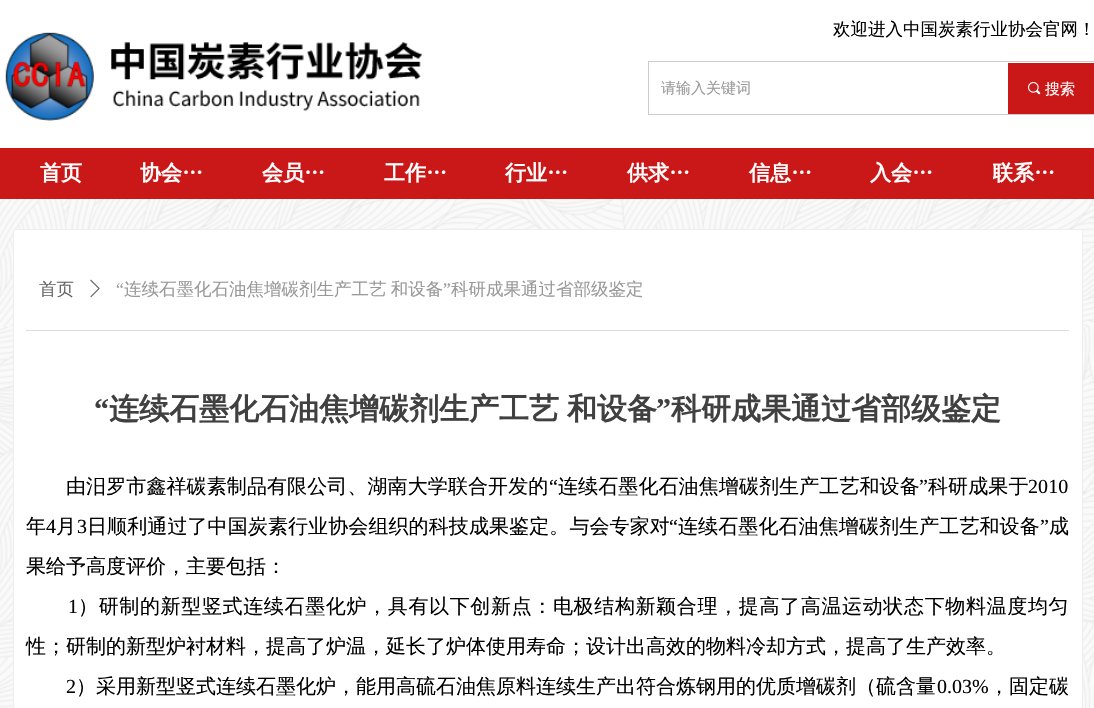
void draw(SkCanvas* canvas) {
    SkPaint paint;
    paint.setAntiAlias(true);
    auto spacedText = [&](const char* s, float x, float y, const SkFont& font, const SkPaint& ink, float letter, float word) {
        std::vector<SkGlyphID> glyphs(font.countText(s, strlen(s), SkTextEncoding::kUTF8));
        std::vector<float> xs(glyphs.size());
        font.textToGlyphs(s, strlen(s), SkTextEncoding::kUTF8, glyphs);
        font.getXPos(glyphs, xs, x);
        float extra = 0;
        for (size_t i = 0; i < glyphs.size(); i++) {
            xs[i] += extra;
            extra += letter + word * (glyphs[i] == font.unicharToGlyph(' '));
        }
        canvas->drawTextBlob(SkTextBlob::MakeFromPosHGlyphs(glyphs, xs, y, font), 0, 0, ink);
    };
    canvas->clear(0xFFFFFFFF);
    SkFont font1(fontMgr->matchFamilyStyle("WenQuanYi Zen Hei", SkFontStyle(500, SkFontStyle::kNormal_Width, SkFontStyle::kUpright_Slant)), 17.5f);
    font1.setSubpixel(true);
    paint.setColor(0xFF000000);
    canvas->drawString("欢迎进入中国炭素行业协会官网！", 833, 35, font1, paint);
    canvas->drawImageRect(SkImages::DeferredFromEncodedData(SkData::MakeFromFileName("img1.png")), SkRect::MakeXYWH(5, 32, 417, 89), SkSamplingOptions());
    paint.setStyle(SkPaint::kStroke_Style);
    paint.setStrokeWidth(1);
    paint.setColor(0xFFCCCCCC);
    canvas->drawRect(SkRect::MakeXYWH(648.5f, 61.5f, 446, 53), paint);
    SkFont font2(fontMgr->matchFamilyStyle("WenQuanYi Zen Hei", SkFontStyle(500, SkFontStyle::kNormal_Width, SkFontStyle::kUpright_Slant)), 15);
    font2.setSubpixel(true);
    paint.setStyle(SkPaint::kFill_Style);
    paint.setColor(0xFF999999);
    canvas->drawString("请输入关键词", 661, 93, font2, paint);
    paint.setColor(0xFFCA1818);
    canvas->drawRect(SkRect::MakeXYWH(1008, 63, 86, 51), paint);
    canvas->drawImageRect(SkImages::DeferredFromEncodedData(SkData::MakeFromFileName("img2.png")), SkRect::MakeXYWH(1028, 82, 13, 13), SkSamplingOptions());
    paint.setColor(0xFFFFFFFF);
    canvas->drawString("搜索", 1045, 94, font2, paint);
    paint.setColor(0xFFCA1818);
    canvas->drawRect(SkRect::MakeXYWH(0, 148, 1094, 51), paint);
    SkFont font3(fontMgr->matchFamilyStyle("WenQuanYi Zen Hei", SkFontStyle::Bold()), 21);
    font3.setSubpixel(true);
    paint.setColor(0xFFFFFFFF);
    canvas->drawString("首页", 40, 180, font3, paint);
    canvas->drawString("协会…", 140, 180, font3, paint);
    canvas->drawString("会员…", 262, 180, font3, paint);
    canvas->drawString("工作…", 384, 180, font3, paint);
    canvas->drawString("行业…", 505, 180, font3, paint);
    canvas->drawString("供求…", 627, 180, font3, paint);
    canvas->drawString("信息…", 749, 180, font3, paint);
    canvas->drawString("入会…", 870, 180, font3, paint);
    canvas->save();
    canvas->clipRect(SkRect::MakeXYWH(993, 149, 83, 47));
    canvas->drawString("联系…", 992, 180, font3, paint);
    canvas->restore();
    paint.setColor(0xFFFAFAFA);
    canvas->drawRect(SkRect::MakeXYWH(0, 199, 1094, 509), paint);
    canvas->drawImageRect(SkImages::DeferredFromEncodedData(SkData::MakeFromFileName("img3.png")), SkRect::MakeXYWH(0, 198, 1094, 510), SkSamplingOptions());
    paint.setColor(0xFFFFFFFF);
    canvas->drawRect(SkRect::MakeXYWH(13.5f, 229.5f, 1069, 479), paint);
    paint.setStyle(SkPaint::kStroke_Style);
    paint.setColor(0xFFEEEEEE);
    canvas->drawRect(SkRect::MakeXYWH(13.5f, 229.5f, 1069, 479), paint);
    paint.setStyle(SkPaint::kFill_Style);
    paint.setColor(0xFF666666);
    canvas->drawString("首页", 39, 295, font1, paint);
    canvas->drawImageRect(SkImages::DeferredFromEncodedData(SkData::MakeFromFileName("img4.png")), SkRect::MakeXYWH(90, 279, 10, 19), SkSamplingOptions());
    SkFont font4(fontMgr->matchFamilyStyle("Liberation Serif", SkFontStyle::Normal()), 17.5f);
    font4.setSubpixel(true);
    paint.setColor(0xFF999999);
    canvas->drawString("“", 116, 295, font4, paint);
    spacedText("连续石墨化石油焦增碳剂生产工艺 和设备", 124, 295, font1, paint, 0, -1);
    canvas->drawString("”", 443, 295, font4, paint);
    canvas->drawString("科研成果通过省部级鉴定", 451, 295, font1, paint);
    paint.setColor(0xFFDDDDDD);
    canvas->drawRect(SkRect::MakeXYWH(26, 330, 1043, 1), paint);
    SkFont font5(fontMgr->matchFamilyStyle("Liberation Serif", SkFontStyle::Bold()), 30);
    font5.setSubpixel(true);
    paint.setColor(0xFF404040);
    canvas->drawString("“", 94, 419, font5, paint);
    SkFont font6(fontMgr->matchFamilyStyle("WenQuanYi Zen Hei", SkFontStyle::Bold()), 30);
    font6.setSubpixel(true);
    spacedText("连续石墨化石油焦增碳剂生产工艺 和设备", 109, 419, font6, paint, 0, -1);
    canvas->drawString("”", 656, 419, font5, paint);
    canvas->drawString("科研成果通过省部级鉴定", 671, 419, font6, paint);
    SkFont font7(fontMgr->matchFamilyStyle("WenQuanYi Zen Hei", SkFontStyle(500, SkFontStyle::kNormal_Width, SkFontStyle::kUpright_Slant)), 20);
    font7.setSubpixel(true);
    paint.setColor(0xFF000000);
    spacedText("由汨罗市鑫祥碳素制品有限公司、湖南大学联合开发的", 66, 493, font7, paint, 0.1f, 0);
    SkFont font8(fontMgr->matchFamilyStyle("Liberation Serif", SkFontStyle::Normal()), 20);
    font8.setSubpixel(true);
    spacedText("“", 549, 493, font8, paint, 0.1f, 0);
    spacedText("连续石墨化石油焦增碳剂生产工艺和设备", 558, 493, font7, paint, 0.1f, 0);
    spacedText("”", 919, 493, font8, paint, 0.1f, 0);
    spacedText("科研成果于", 928, 493, font7, paint, 0.1f, 0);
    spacedText("2010", 1028, 493, font8, paint, 0.1f, 0);
    spacedText("年", 26, 533, font7, paint, 0.1f, 0);
    spacedText("4", 46, 533, font8, paint, 0.1f, 0);
    spacedText("月", 56, 533, font7, paint, 0.1f, 0);
    spacedText("3", 77, 533, font8, paint, 0.1f, 0);
    spacedText("日顺利通过了中国炭素行业协会组织的科技成果鉴定。与会专家对", 87, 533, font7, paint, 0.1f, 0);
    spacedText("“", 669, 533, font8, paint, 0.1f, 0);
    spacedText("连续石墨化石油焦增碳剂生产工艺和设备", 678, 533, font7, paint, 0.1f, 0);
    spacedText("”", 1040, 533, font8, paint, 0.1f, 0);
    spacedText("成", 1049, 533, font7, paint, 0.1f, 0);
    canvas->drawString("果给予高度评价，主要包括：", 26, 573, font7, paint);
    spacedText("1", 68, 613, font8, paint, 0.65f, 0);
    spacedText("）研制的新型竖式连续石墨化炉，具有以下创新点：电极结构新颖合理，提高了高温运动状态下物料温度均匀", 78, 613, font7, paint, 0.65f, 0);
    canvas->drawString("性；研制的新型炉衬材料，提高了炉温，延长了炉体使用寿命；设计出高效的物料冷却方式，提高了生产效率。", 26, 653, font7, paint);
    canvas->drawString("2", 66, 693, font8, paint);
    canvas->drawString("）采用新型竖式连续石墨化炉，能用高硫石油焦原料连续生产出符合炼钢用的优质增碳剂（硫含量", 76, 693, font7, paint);
    canvas->drawString("0.03%", 937, 693, font8, paint);
    canvas->drawString("，固定碳", 989, 693, font7, paint);
}
